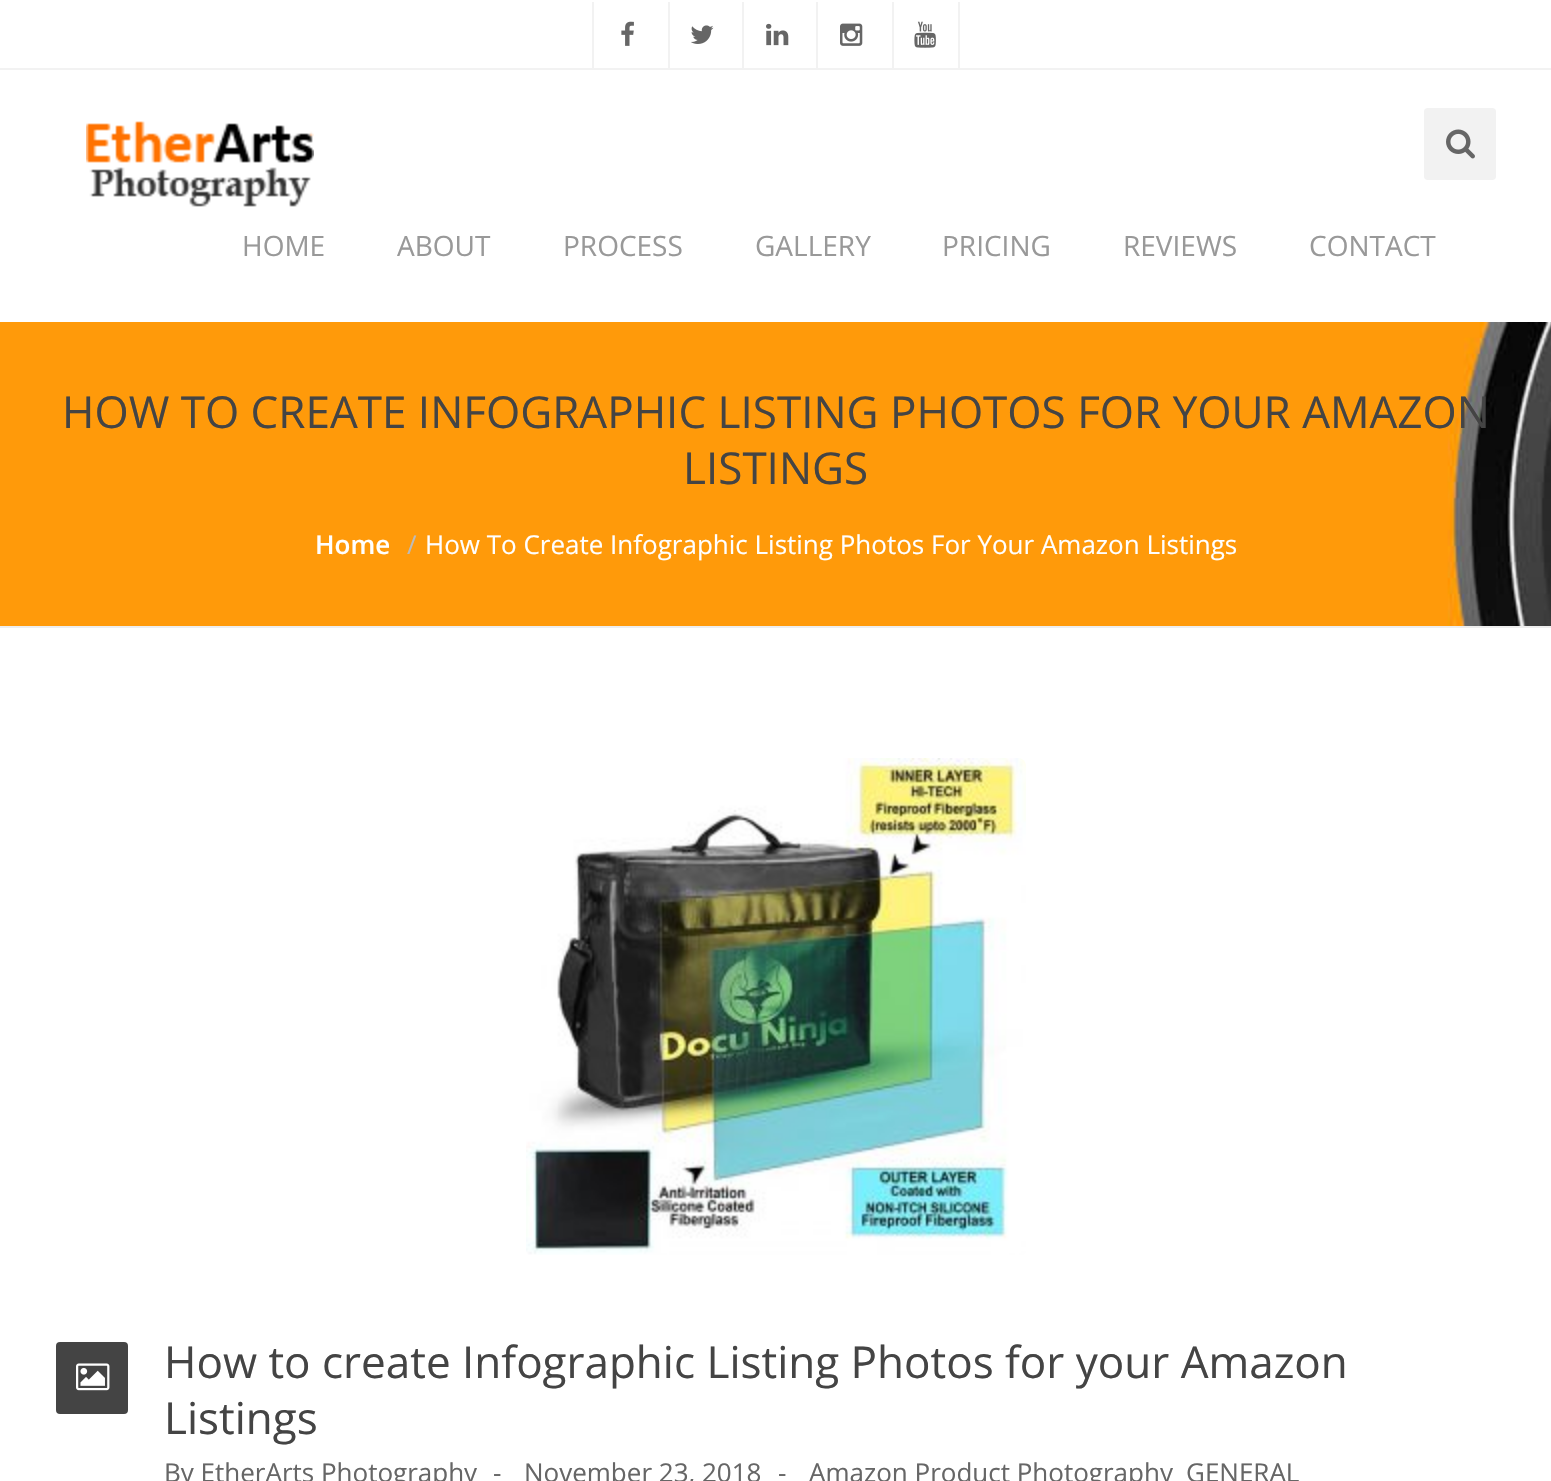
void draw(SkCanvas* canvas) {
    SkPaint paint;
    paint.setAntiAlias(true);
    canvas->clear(0xFFFFFFFF);
    paint.setColor(0xFFF2F2F2);
    canvas->drawRect(SkRect::MakeXYWH(0, 68, 1551, 2), paint);
    canvas->drawRect(SkRect::MakeXYWH(592, 2, 2, 66), paint);
    canvas->drawImageRect(SkImages::DeferredFromEncodedData(SkData::MakeFromFileName("img1.png")), SkRect::MakeXYWH(621, 21, 13, 25), SkSamplingOptions());
    canvas->drawRect(SkRect::MakeXYWH(668, 2, 2, 66), paint);
    canvas->drawImageRect(SkImages::DeferredFromEncodedData(SkData::MakeFromFileName("img2.png")), SkRect::MakeXYWH(691, 25, 23, 19), SkSamplingOptions());
    canvas->drawRect(SkRect::MakeXYWH(742, 2, 2, 66), paint);
    canvas->drawImageRect(SkImages::DeferredFromEncodedData(SkData::MakeFromFileName("img3.png")), SkRect::MakeXYWH(766, 23, 23, 23), SkSamplingOptions());
    canvas->drawRect(SkRect::MakeXYWH(816, 2, 2, 66), paint);
    canvas->drawImageRect(SkImages::DeferredFromEncodedData(SkData::MakeFromFileName("img4.png")), SkRect::MakeXYWH(840, 23, 23, 23), SkSamplingOptions());
    canvas->drawRect(SkRect::MakeXYWH(958, 2, 2, 66), paint);
    canvas->drawRect(SkRect::MakeXYWH(892, 2, 2, 66), paint);
    canvas->drawImageRect(SkImages::DeferredFromEncodedData(SkData::MakeFromFileName("img5.png")), SkRect::MakeXYWH(914, 21, 22, 27), SkSamplingOptions());
    canvas->drawImageRect(SkImages::DeferredFromEncodedData(SkData::MakeFromFileName("img6.png")), SkRect::MakeXYWH(86, 121, 228, 86), SkSamplingOptions());
    canvas->drawRoundRect(SkRect::MakeXYWH(1424, 108, 72, 72), 4, 4, paint);
    canvas->drawImageRect(SkImages::DeferredFromEncodedData(SkData::MakeFromFileName("img7.png")), SkRect::MakeXYWH(1446, 129, 29, 30), SkSamplingOptions());
    SkFont font1(fontMgr->matchFamilyStyle("Open Sans", SkFontStyle::Normal()), 28);
    font1.setSubpixel(true);
    paint.setColor(0xFF999999);
    canvas->drawString("HOME", 242, 256, font1, paint);
    canvas->drawString("ABOUT", 397, 256, font1, paint);
    canvas->drawString("PROCESS", 563, 256, font1, paint);
    canvas->drawString("GALLERY", 755, 256, font1, paint);
    canvas->drawString("PRICING", 942, 256, font1, paint);
    canvas->drawString("REVIEWS", 1123, 256, font1, paint);
    canvas->drawString("CONTACT", 1309, 256, font1, paint);
    canvas->drawImageRect(SkImages::DeferredFromEncodedData(SkData::MakeFromFileName("img8.png")), SkRect::MakeXYWH(0, 322, 1551, 304), SkSamplingOptions());
    paint.setColor(0xFFEEEEEE);
    canvas->drawRect(SkRect::MakeXYWH(0, 626, 1551, 2), paint);
    SkFont font2(fontMgr->matchFamilyStyle("Open Sans", SkFontStyle::Normal()), 44);
    font2.setSubpixel(true);
    paint.setColor(0xFF444444);
    canvas->drawString("HOW TO CREATE INFOGRAPHIC LISTING PHOTOS FOR YOUR AMAZON", 62, 428, font2, paint);
    canvas->drawString("LISTINGS", 683, 484, font2, paint);
    SkFont font3(fontMgr->matchFamilyStyle("Open Sans", SkFontStyle(600, SkFontStyle::kNormal_Width, SkFontStyle::kUpright_Slant)), 26);
    font3.setSubpixel(true);
    paint.setColor(0xFFFFFFFF);
    canvas->drawString("Home", 315, 554, font3, paint);
    SkFont font4(fontMgr->matchFamilyStyle("Open Sans", SkFontStyle::Normal()), 26);
    font4.setSubpixel(true);
    paint.setColor(0xFFBBBBBB);
    canvas->drawString("/", 407, 554, font4, paint);
    paint.setColor(0xFFFFFFFF);
    canvas->drawString("How To Create Infographic Listing Photos For Your Amazon Listings", 425, 554, font4, paint);
    canvas->drawImageRect(SkImages::DeferredFromEncodedData(SkData::MakeFromFileName("img9.png")), SkRect::MakeXYWH(526, 758, 500, 497), SkSamplingOptions());
    paint.setColor(0xFF444444);
    canvas->drawRoundRect(SkRect::MakeXYWH(56, 1342, 72, 72), 4, 4, paint);
    canvas->drawImageRect(SkImages::DeferredFromEncodedData(SkData::MakeFromFileName("img10.png")), SkRect::MakeXYWH(76, 1363, 34, 28), SkSamplingOptions());
    canvas->drawString("How to create Infographic Listing Photos for your Amazon", 164, 1378, font2, paint);
    canvas->drawString("Listings", 164, 1434, font2, paint);
    paint.setColor(0xFF666666);
    canvas->drawString("By EtherArts Photography", 164, 1482, font4, paint);
    canvas->drawString("-", 493, 1482, font4, paint);
    canvas->drawString("November 23, 2018", 524, 1482, font4, paint);
    canvas->drawString("-", 778, 1482, font4, paint);
    canvas->drawString("Amazon Product Photography", 809, 1482, font4, paint);
    canvas->drawString("GENERAL", 1186, 1482, font4, paint);
}
